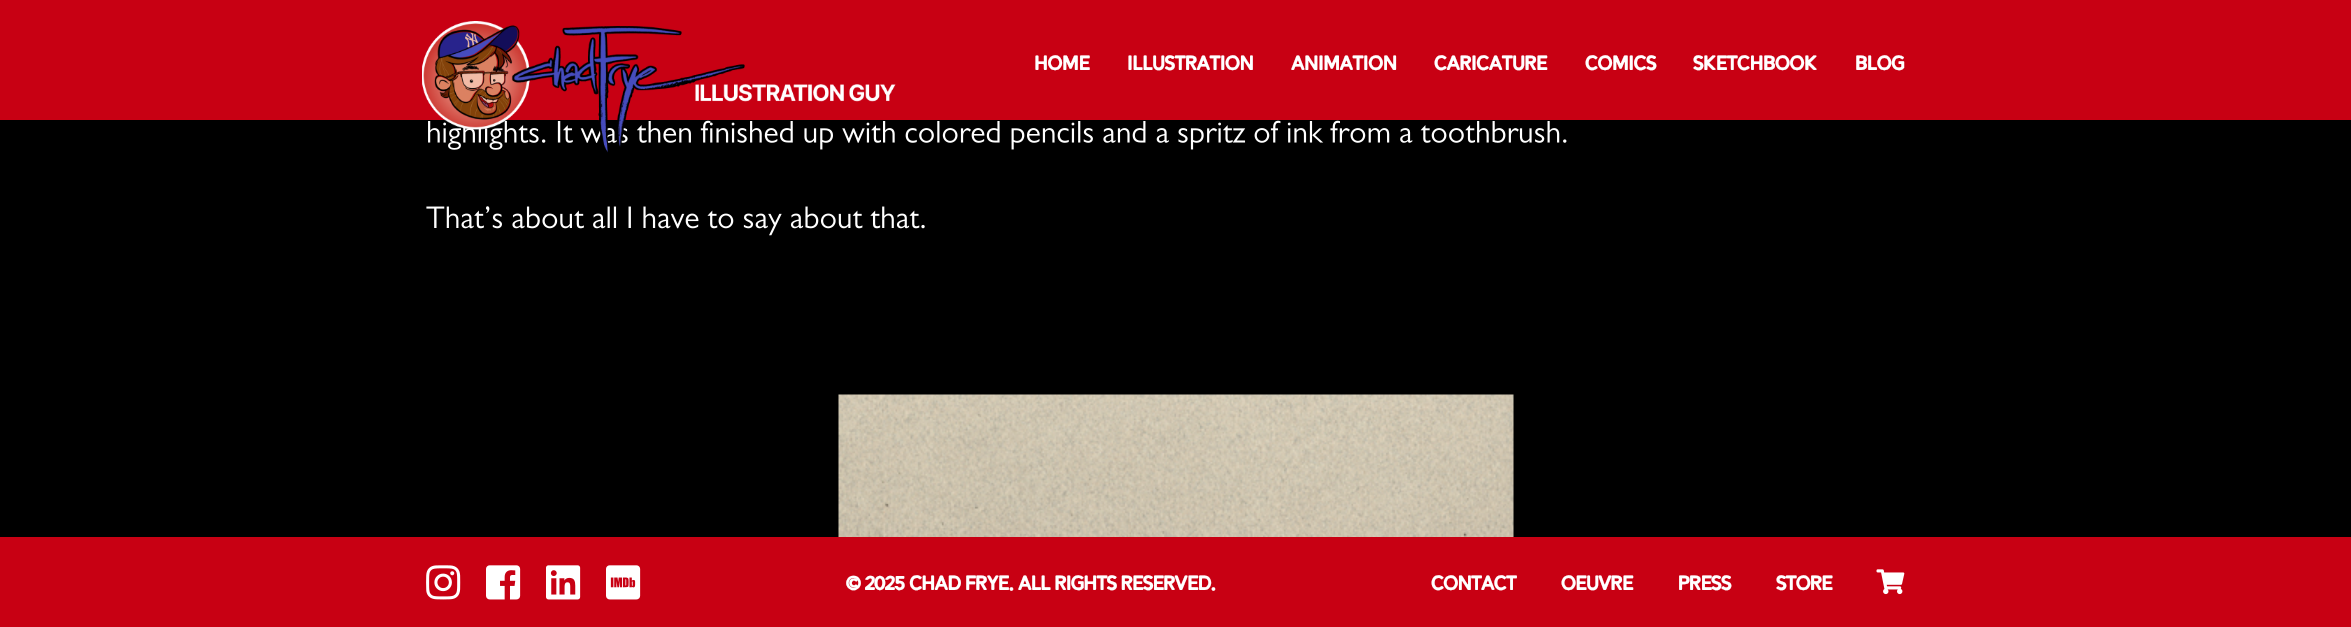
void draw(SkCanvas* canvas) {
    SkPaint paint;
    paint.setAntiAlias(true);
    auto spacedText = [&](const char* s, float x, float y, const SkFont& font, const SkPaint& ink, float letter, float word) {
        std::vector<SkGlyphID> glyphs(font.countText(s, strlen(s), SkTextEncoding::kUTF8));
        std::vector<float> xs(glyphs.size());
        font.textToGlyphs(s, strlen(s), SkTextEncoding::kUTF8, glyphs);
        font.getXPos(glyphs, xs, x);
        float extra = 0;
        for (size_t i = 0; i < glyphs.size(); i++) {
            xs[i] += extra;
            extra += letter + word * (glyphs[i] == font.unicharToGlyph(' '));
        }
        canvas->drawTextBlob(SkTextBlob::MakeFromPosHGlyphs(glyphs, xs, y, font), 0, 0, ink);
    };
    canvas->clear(0xFF000000);
    paint.setColor(0xFFC80013);
    canvas->drawRect(SkRect::MakeXYWH(0, 0, 2351, 120), paint);
    canvas->drawImageRect(SkImages::DeferredFromEncodedData(SkData::MakeFromFileName("img2.png")), SkRect::MakeXYWH(428, 120, 1139, 30), SkSamplingOptions());
    canvas->drawImageRect(SkImages::DeferredFromEncodedData(SkData::MakeFromFileName("img1.png")), SkRect::MakeXYWH(422, 21, 474, 132), SkSamplingOptions());
    SkFont font1(fontMgr->matchFamilyStyle("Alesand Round", SkFontStyle(800, SkFontStyle::kNormal_Width, SkFontStyle::kUpright_Slant)), 24.75f);
    font1.setSubpixel(true);
    paint.setColor(0xFFFFFFFF);
    spacedText("Home", 1034, 71, font1, paint, -0.75f, 0);
    spacedText("Illustration", 1127, 71, font1, paint, -0.75f, 0);
    spacedText("Animation", 1291, 71, font1, paint, -0.75f, 0);
    spacedText("Caricature", 1434, 71, font1, paint, -0.75f, 0);
    spacedText("Comics", 1585, 71, font1, paint, -0.75f, 0);
    spacedText("Sketchbook", 1693, 71, font1, paint, -0.75f, 0);
    spacedText("Blog", 1855, 71, font1, paint, -0.75f, 0);
    canvas->drawImageRect(SkImages::DeferredFromEncodedData(SkData::MakeFromFileName("img3.png")), SkRect::MakeXYWH(426, 206, 499, 30), SkSamplingOptions());
    canvas->drawImageRect(SkImages::DeferredFromEncodedData(SkData::MakeFromFileName("img4.png")), SkRect::MakeXYWH(838, 394, 676, 143), SkSamplingOptions());
    paint.setColor(0xFFC80013);
    canvas->drawRect(SkRect::MakeXYWH(0, 537, 2351, 90), paint);
    canvas->drawImageRect(SkImages::DeferredFromEncodedData(SkData::MakeFromFileName("img5.png")), SkRect::MakeXYWH(426, 565, 35, 35), SkSamplingOptions());
    canvas->drawImageRect(SkImages::DeferredFromEncodedData(SkData::MakeFromFileName("img6.png")), SkRect::MakeXYWH(486, 565, 35, 35), SkSamplingOptions());
    canvas->drawImageRect(SkImages::DeferredFromEncodedData(SkData::MakeFromFileName("img7.png")), SkRect::MakeXYWH(546, 565, 35, 35), SkSamplingOptions());
    canvas->drawImageRect(SkImages::DeferredFromEncodedData(SkData::MakeFromFileName("img8.png")), SkRect::MakeXYWH(606, 565, 35, 35), SkSamplingOptions());
    paint.setColor(0xFFFFFFFF);
    spacedText("© 2025 CHAD FRYE. ALL RIGHTS RESERVED.", 846, 591, font1, paint, -1, 0);
    spacedText("Contact", 1431, 591, font1, paint, -1, 0);
    spacedText("Oeuvre", 1561, 591, font1, paint, -1, 0);
    spacedText("Press", 1678, 591, font1, paint, -1, 0);
    spacedText("Store", 1776, 591, font1, paint, -1, 0);
    canvas->drawImageRect(SkImages::DeferredFromEncodedData(SkData::MakeFromFileName("img9.png")), SkRect::MakeXYWH(1876, 569, 29, 26), SkSamplingOptions());
}
